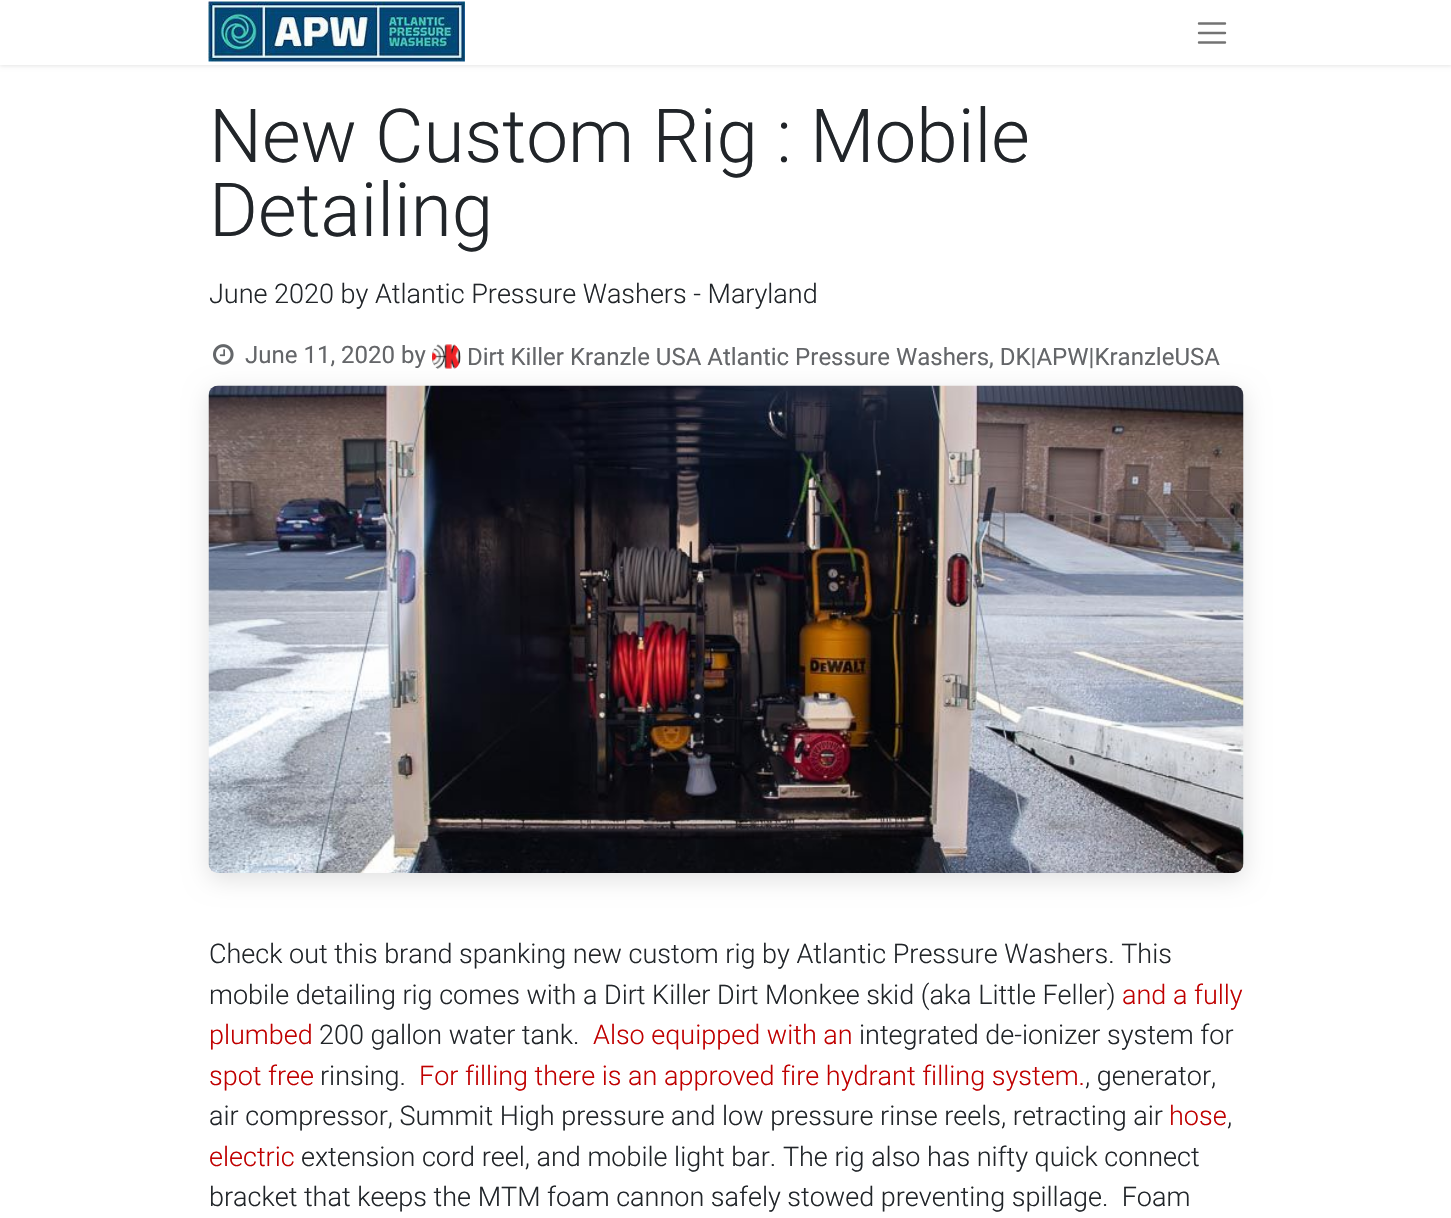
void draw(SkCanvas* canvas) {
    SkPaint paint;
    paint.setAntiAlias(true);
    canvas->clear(0xFFFFFFFF);
    paint.setColor(0x1A000000);
    paint.setMaskFilter(SkMaskFilter::MakeBlur(kNormal_SkBlurStyle, 2));
    canvas->drawRect(SkRect::MakeXYWH(0, 2, 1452, 64), paint);
    paint.setMaskFilter(nullptr);
    paint.setColor(0xFFFFFFFF);
    canvas->drawRect(SkRect::MakeXYWH(0, 0, 1451, 65), paint);
    canvas->drawImageRect(SkImages::DeferredFromEncodedData(SkData::MakeFromFileName("img1.png")), SkRect::MakeXYWH(208, 1, 257, 61), SkSamplingOptions());
    paint.setStyle(SkPaint::kStroke_Style);
    paint.setStrokeWidth(2.4f);
    paint.setStrokeCap(SkPaint::kRound_Cap);
    paint.setColor(0xFF737373);
    canvas->drawPath(SkPathBuilder().moveTo(1199, 23.5f).lineTo(1225, 23.5f).moveTo(1199, 33).lineTo(1225, 33).moveTo(1199, 42.5f).lineTo(1225, 42.5f).detach(), paint);
    SkFont font1(fontMgr->matchFamilyStyle("Roboto", SkFontStyle(300, SkFontStyle::kNormal_Width, SkFontStyle::kUpright_Slant)), 74.6f);
    font1.setSubpixel(true);
    paint.setStyle(SkPaint::kFill_Style);
    paint.setColor(0xFF212529);
    canvas->drawString("New Custom Rig : Mobile", 209, 162, font1, paint);
    canvas->drawString("Detailing", 209, 236, font1, paint);
    SkFont font2(fontMgr->matchFamilyStyle("Roboto", SkFontStyle(300, SkFontStyle::kNormal_Width, SkFontStyle::kUpright_Slant)), 27);
    font2.setSubpixel(true);
    canvas->drawString("June 2020 by Atlantic Pressure Washers - Maryland", 209, 303, font2, paint);
    canvas->drawImageRect(SkImages::DeferredFromEncodedData(SkData::MakeFromFileName("img2.png")), SkRect::MakeXYWH(213, 344, 21, 21), SkSamplingOptions());
    SkFont font3(fontMgr->matchFamilyStyle("Roboto", SkFontStyle::Normal()), 24);
    font3.setSubpixel(true);
    paint.setColor(0xFF646669);
    canvas->drawString("June 11, 2020 by", 245, 363, font3, paint);
    canvas->drawImageRect(SkImages::DeferredFromEncodedData(SkData::MakeFromFileName("img3.png")), SkRect::MakeXYWH(432, 344, 29, 25), SkSamplingOptions());
    canvas->drawString("Dirt Killer Kranzle USA Atlantic Pressure Washers, DK|APW|KranzleUSA", 467, 365, font3, paint);
    paint.setColor(0x1F000000);
    paint.setMaskFilter(SkMaskFilter::MakeBlur(kNormal_SkBlurStyle, 12));
    canvas->drawRoundRect(SkRect::MakeXYWH(209, 392, 1035, 487), 9, 9, paint);
    paint.setMaskFilter(nullptr);
    canvas->drawImageRect(SkImages::DeferredFromEncodedData(SkData::MakeFromFileName("img4.png")), SkRect::MakeXYWH(208, 385, 1036, 488), SkSamplingOptions());
    paint.setColor(0xFF212529);
    canvas->drawString("Check out this brand spanking new custom rig by Atlantic Pressure Washers. This", 209, 963, font2, paint);
    canvas->drawString("mobile detailing rig comes with a Dirt Killer Dirt Monkee skid (aka Little Feller)", 209, 1004, font2, paint);
    paint.setColor(0xFFC00000);
    canvas->drawString("and a fully", 1122, 1004, font2, paint);
    canvas->drawString("plumbed", 209, 1044, font2, paint);
    paint.setColor(0xFF212529);
    canvas->drawString("200 gallon water tank.", 319, 1044, font2, paint);
    paint.setColor(0xFFC00000);
    canvas->drawString("Also equipped with an", 593, 1044, font2, paint);
    paint.setColor(0xFF212529);
    canvas->drawString("integrated de-ionizer system for", 859, 1044, font2, paint);
    paint.setColor(0xFFC00000);
    canvas->drawString("spot free", 209, 1085, font2, paint);
    paint.setColor(0xFF212529);
    canvas->drawString("rinsing.", 320, 1085, font2, paint);
    paint.setColor(0xFFC00000);
    canvas->drawString("For filling there is an approved fire hydrant filling system.", 419, 1085, font2, paint);
    paint.setColor(0xFF212529);
    canvas->drawString(", generator,", 1085, 1085, font2, paint);
    canvas->drawString("air compressor, Summit High pressure and low pressure rinse reels, retracting air", 209, 1125, font2, paint);
    paint.setColor(0xFFC00000);
    canvas->drawString("hose", 1169, 1125, font2, paint);
    paint.setColor(0xFF212529);
    canvas->drawString(",", 1227, 1125, font2, paint);
    paint.setColor(0xFFC00000);
    canvas->drawString("electric", 209, 1166, font2, paint);
    paint.setColor(0xFF212529);
    canvas->drawString("extension cord reel, and mobile light bar. The rig also has nifty quick connect", 301, 1166, font2, paint);
    canvas->drawString("bracket that keeps the MTM foam cannon safely stowed preventing spillage.  Foam", 209, 1206, font2, paint);
}
